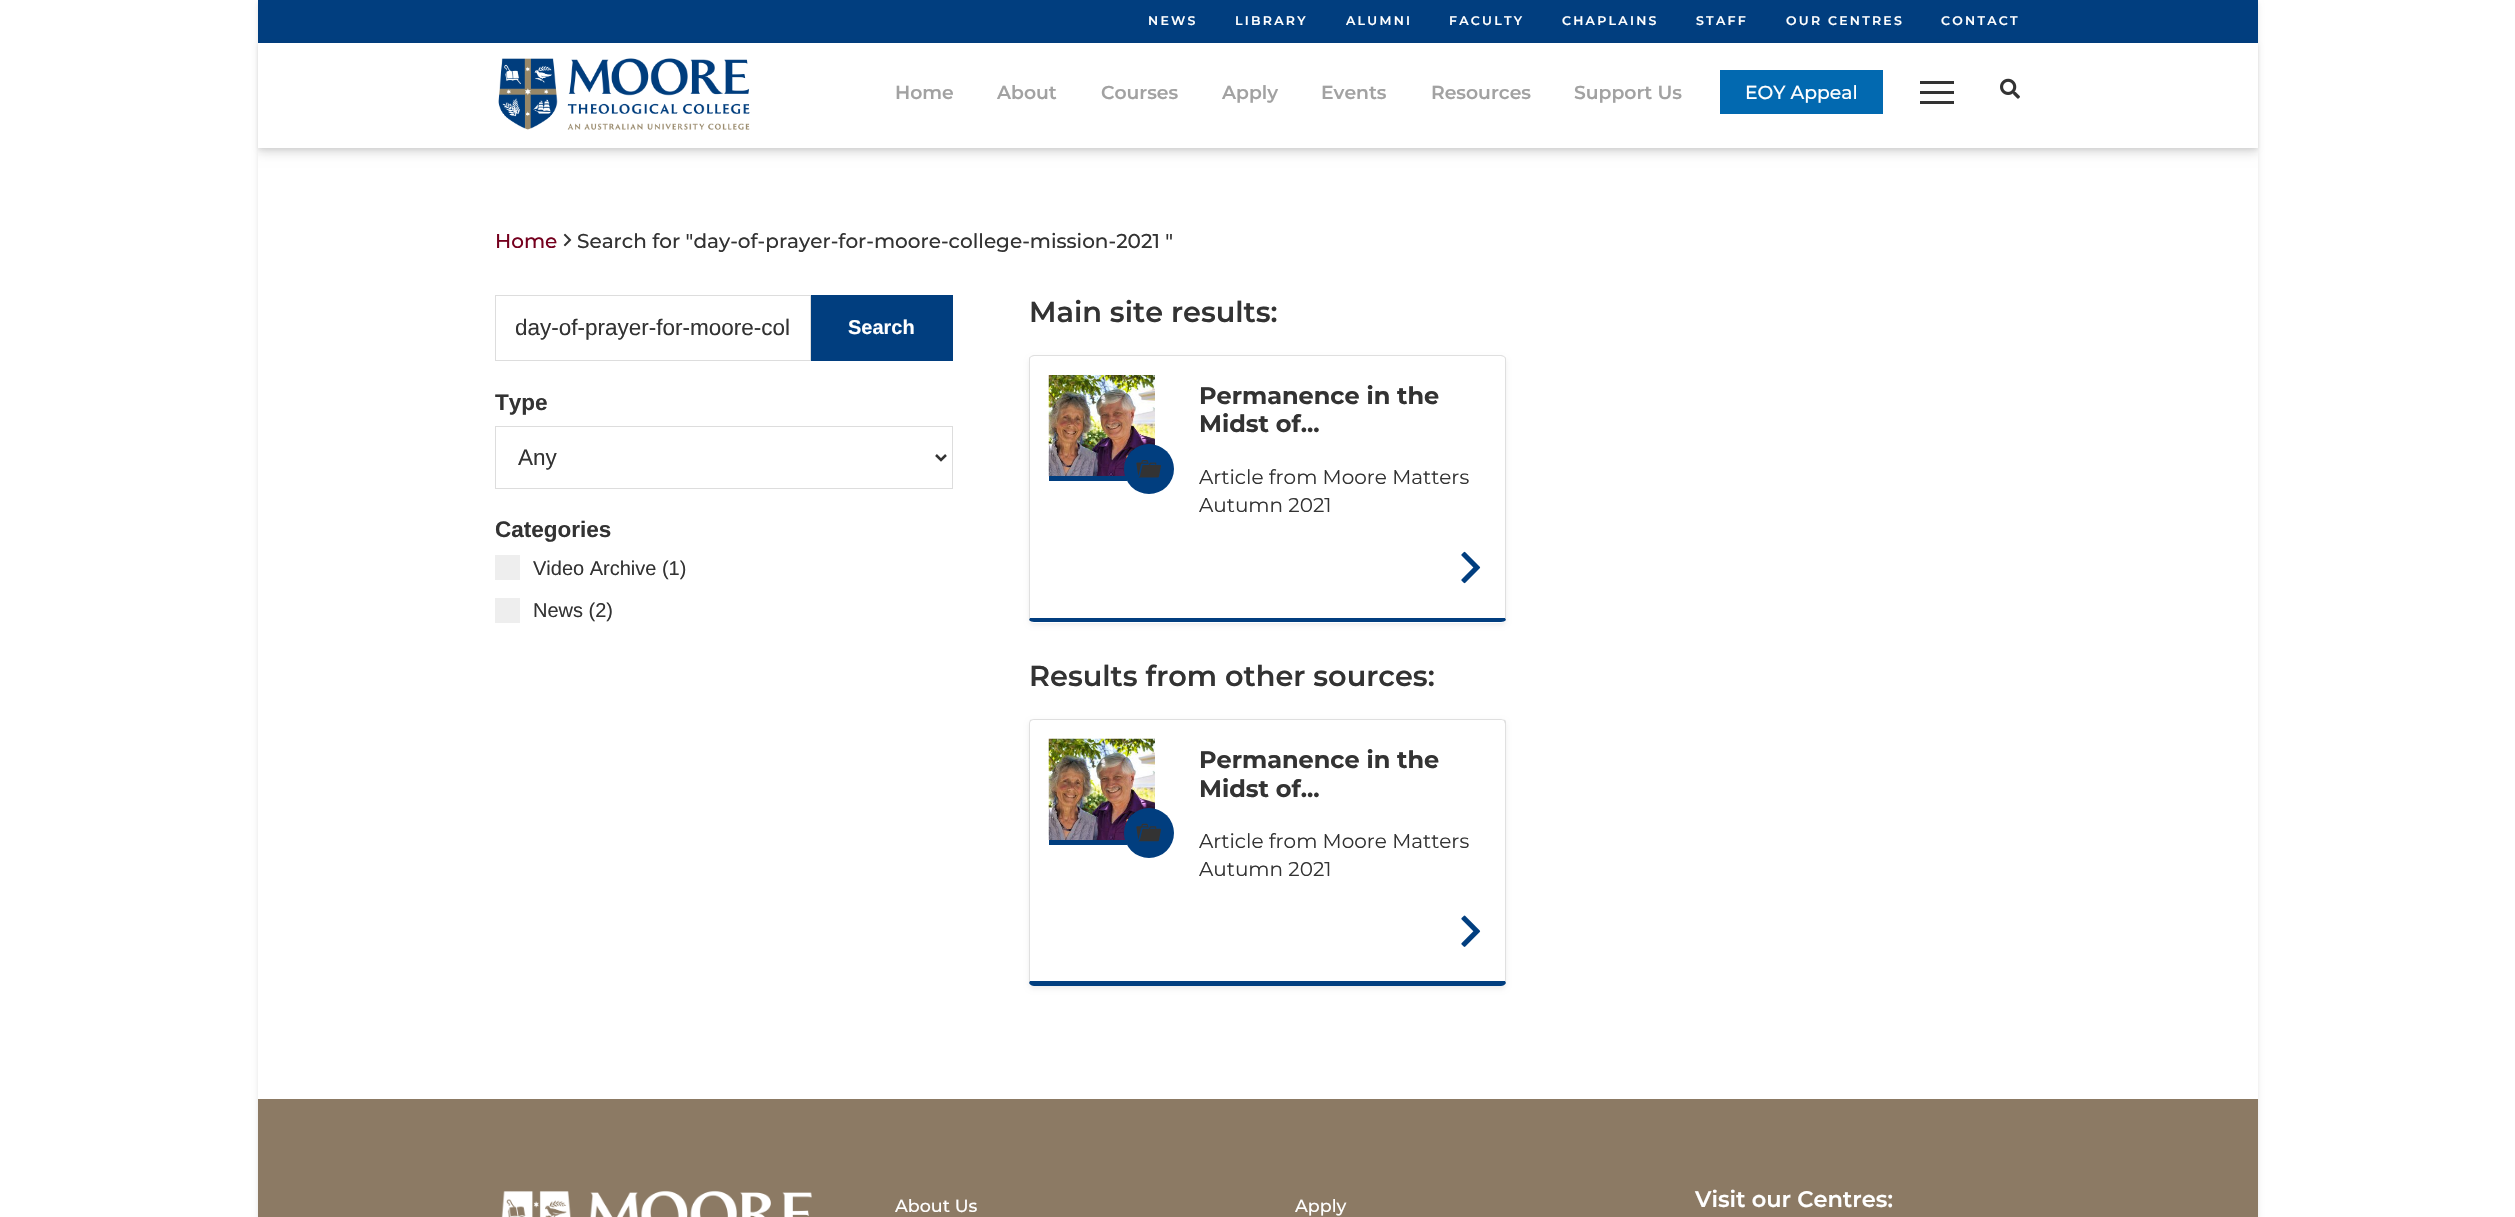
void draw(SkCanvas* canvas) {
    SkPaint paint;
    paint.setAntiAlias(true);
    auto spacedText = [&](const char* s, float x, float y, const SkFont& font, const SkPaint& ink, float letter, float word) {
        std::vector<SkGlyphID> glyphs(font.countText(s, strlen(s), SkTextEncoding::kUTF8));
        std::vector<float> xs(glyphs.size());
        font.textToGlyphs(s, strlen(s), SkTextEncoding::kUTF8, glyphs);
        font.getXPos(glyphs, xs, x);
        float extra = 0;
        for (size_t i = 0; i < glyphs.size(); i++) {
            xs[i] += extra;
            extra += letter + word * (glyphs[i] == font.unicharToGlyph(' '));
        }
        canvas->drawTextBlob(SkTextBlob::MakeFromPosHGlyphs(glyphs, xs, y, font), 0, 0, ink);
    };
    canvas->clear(0xFFFFFFFF);
    canvas->save();
    canvas->clipPath(SkPathBuilder(SkPathFillType::kEvenOdd).moveTo(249, 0).lineTo(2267, 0).lineTo(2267, 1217).lineTo(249, 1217).close().moveTo(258, 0).lineTo(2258, 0).lineTo(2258, 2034).lineTo(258, 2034).close().detach(), true);
    paint.setColor(0x1A000000);
    paint.setMaskFilter(SkMaskFilter::MakeBlur(kNormal_SkBlurStyle, 2.5f));
    canvas->drawRect(SkRect::MakeXYWH(258, 3, 2000, 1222), paint);
    paint.setMaskFilter(nullptr);
    canvas->restore();
    paint.setColor(0xFF013E7F);
    canvas->drawRect(SkRect::MakeXYWH(258, 0, 2000, 43), paint);
    SkFont font1(fontMgr->matchFamilyStyle("Montserrat", SkFontStyle(600, SkFontStyle::kNormal_Width, SkFontStyle::kUpright_Slant)), 12.5f);
    font1.setSubpixel(true);
    paint.setColor(0xFFFFFFFF);
    spacedText("NEWS", 1148, 25, font1, paint, 2.25f, 0);
    spacedText("LIBRARY", 1235, 25, font1, paint, 2.25f, 0);
    spacedText("ALUMNI", 1346, 25, font1, paint, 2.25f, 0);
    spacedText("FACULTY", 1449, 25, font1, paint, 2.25f, 0);
    spacedText("CHAPLAINS", 1562, 25, font1, paint, 2.25f, 0);
    spacedText("STAFF", 1696, 25, font1, paint, 2.25f, 0);
    spacedText("OUR CENTRES", 1786, 25, font1, paint, 2.25f, 0);
    spacedText("CONTACT", 1941, 25, font1, paint, 2.25f, 0);
    paint.setColor(0x14000000);
    paint.setMaskFilter(SkMaskFilter::MakeBlur(kNormal_SkBlurStyle, 2));
    canvas->drawRect(SkRect::MakeXYWH(258, 45, 2000, 105), paint);
    paint.setMaskFilter(nullptr);
    canvas->save();
    canvas->clipRect(SkRect::MakeXYWH(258, 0, 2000, 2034));
    paint.setColor(0x1F000000);
    paint.setMaskFilter(SkMaskFilter::MakeBlur(kNormal_SkBlurStyle, 5));
    canvas->drawRect(SkRect::MakeXYWH(258, 48, 2000, 105), paint);
    paint.setMaskFilter(nullptr);
    canvas->restore();
    paint.setColor(0xFFFFFFFF);
    canvas->drawRect(SkRect::MakeXYWH(258, 43, 2000, 105), paint);
    canvas->drawImageRect(SkImages::DeferredFromEncodedData(SkData::MakeFromFileName("img1.png")), SkRect::MakeXYWH(498, 58, 252, 72), SkSamplingOptions());
    SkFont font2(fontMgr->matchFamilyStyle("Montserrat", SkFontStyle(600, SkFontStyle::kNormal_Width, SkFontStyle::kUpright_Slant)), 18.75f);
    font2.setSubpixel(true);
    paint.setColor(0xFFA2A2A2);
    canvas->drawString("Home", 895, 99, font2, paint);
    canvas->drawString("About", 997, 99, font2, paint);
    canvas->drawString("Courses", 1101, 99, font2, paint);
    canvas->drawString("Apply", 1222, 99, font2, paint);
    canvas->drawString("Events", 1321, 99, font2, paint);
    canvas->drawString("Resources", 1431, 99, font2, paint);
    canvas->drawString("Support Us", 1574, 99, font2, paint);
    paint.setColor(0xFF0269B0);
    canvas->drawRect(SkRect::MakeXYWH(1720, 70, 163, 44), paint);
    SkFont font3(fontMgr->matchFamilyStyle("Montserrat", SkFontStyle(500, SkFontStyle::kNormal_Width, SkFontStyle::kUpright_Slant)), 18.75f);
    font3.setSubpixel(true);
    paint.setColor(0xFFFFFFFF);
    canvas->drawString("EOY Appeal", 1745, 99, font3, paint);
    paint.setColor(0xFF333333);
    canvas->drawRect(SkRect::MakeXYWH(1920, 81, 34, 3), paint);
    canvas->drawRect(SkRect::MakeXYWH(1920, 91, 34, 3), paint);
    canvas->drawRect(SkRect::MakeXYWH(1920, 101, 34, 3), paint);
    canvas->drawImageRect(SkImages::DeferredFromEncodedData(SkData::MakeFromFileName("img2.png")), SkRect::MakeXYWH(2000, 78, 20, 21), SkSamplingOptions());
    SkFont font4(fontMgr->matchFamilyStyle("Montserrat", SkFontStyle(500, SkFontStyle::kNormal_Width, SkFontStyle::kUpright_Slant)), 20);
    font4.setSubpixel(true);
    paint.setColor(0xFF75001E);
    canvas->drawString("Home", 495, 248, font4, paint);
    canvas->drawImageRect(SkImages::DeferredFromEncodedData(SkData::MakeFromFileName("img3.png")), SkRect::MakeXYWH(563, 233, 9, 14), SkSamplingOptions());
    paint.setColor(0xFF333333);
    canvas->drawString("Search for \"day-of-prayer-for-moore-college-mission-2021 \"", 577, 248, font4, paint);
    paint.setStyle(SkPaint::kStroke_Style);
    paint.setStrokeWidth(1);
    paint.setColor(0xFFDDDDDD);
    canvas->drawRect(SkRect::MakeXYWH(495.5f, 295.5f, 315, 65), paint);
    SkFont font5(fontMgr->matchFamilyStyle("Liberation Sans", SkFontStyle::Normal()), 22.5f);
    font5.setSubpixel(true);
    paint.setStyle(SkPaint::kFill_Style);
    paint.setColor(0xFF333333);
    canvas->drawString("day-of-prayer-for-moore-col", 515, 335, font5, paint);
    paint.setColor(0xFF013E7F);
    canvas->drawRect(SkRect::MakeXYWH(811, 295, 142, 66), paint);
    SkFont font6(fontMgr->matchFamilyStyle("Liberation Sans", SkFontStyle::Bold()), 20);
    font6.setSubpixel(true);
    paint.setColor(0xFFFFFFFF);
    canvas->drawString("Search", 848, 334, font6, paint);
    SkFont font7(fontMgr->matchFamilyStyle("Liberation Sans", SkFontStyle::Bold()), 22.5f);
    font7.setSubpixel(true);
    paint.setColor(0xFF333333);
    canvas->drawString("Type", 495, 410, font7, paint);
    paint.setStyle(SkPaint::kStroke_Style);
    paint.setColor(0xFFDDDDDD);
    canvas->drawRect(SkRect::MakeXYWH(495.5f, 426.5f, 457, 62), paint);
    paint.setStrokeWidth(2.5f);
    paint.setColor(0xFF333333);
    canvas->drawPath(SkPathBuilder().moveTo(936, 455).lineTo(941, 460).lineTo(946, 455).detach(), paint);
    paint.setStyle(SkPaint::kFill_Style);
    canvas->drawString("Any", 518, 465, font5, paint);
    canvas->drawString("Categories", 495, 537, font7, paint);
    paint.setColor(0xFFEEEEEE);
    canvas->drawRect(SkRect::MakeXYWH(495, 555, 25, 25), paint);
    SkFont font8(fontMgr->matchFamilyStyle("Liberation Sans", SkFontStyle::Normal()), 20);
    font8.setSubpixel(true);
    paint.setColor(0xFF333333);
    canvas->drawString("Video Archive (1)", 533, 575, font8, paint);
    paint.setColor(0xFFEEEEEE);
    canvas->drawRect(SkRect::MakeXYWH(495, 598, 25, 25), paint);
    paint.setColor(0xFF333333);
    canvas->drawString("News (2)", 533, 617, font8, paint);
    SkFont font9(fontMgr->matchFamilyStyle("Montserrat", SkFontStyle(600, SkFontStyle::kNormal_Width, SkFontStyle::kUpright_Slant)), 28.75f);
    font9.setSubpixel(true);
    canvas->drawString("Main site results:", 1029, 322, font9, paint);
    paint.setColor(0x12000000);
    paint.setMaskFilter(SkMaskFilter::MakeBlur(kNormal_SkBlurStyle, 2.5f));
    canvas->drawRoundRect(SkRect::MakeXYWH(1029, 358, 477, 267), 5, 5, paint);
    paint.setMaskFilter(nullptr);
    paint.setColor(0xFFFFFFFF);
    canvas->drawRoundRect(SkRect::MakeXYWH(1029, 355, 477, 268), 5, 5, paint);
    paint.setColor(0xFFDFDFDF);
    canvas->drawPath(SkPathBuilder().moveTo(1034, 355).cubicTo(1032, 355, 1031, 356, 1030, 357).lineTo(1031, 357).lineTo(1034, 356).lineTo(1501, 356).lineTo(1504, 357).lineTo(1505, 357).cubicTo(1504, 356, 1503, 355, 1501, 355).close().detach(), paint);
    canvas->drawPath(SkPathBuilder().moveTo(1505, 357).cubicTo(1506, 357, 1506, 359, 1506, 360).lineTo(1506, 618).lineTo(1506, 620).lineTo(1505, 618).lineTo(1505, 360).cubicTo(1505, 359, 1505, 358, 1504, 357).close().detach(), paint);
    paint.setColor(0xFF013E7F);
    canvas->drawPath(SkPathBuilder().moveTo(1506, 620).cubicTo(1505, 621, 1503, 622, 1501, 622).lineTo(1034, 622).cubicTo(1032, 622, 1030, 621, 1029, 620).lineTo(1030, 618).lineTo(1505, 618).close().detach(), paint);
    paint.setColor(0x1F000000);
    canvas->drawPath(SkPathBuilder().moveTo(1030, 357).cubicTo(1029, 357, 1029, 359, 1029, 360).lineTo(1029, 618).lineTo(1029, 620).lineTo(1030, 618).lineTo(1030, 360).cubicTo(1030, 359, 1030, 358, 1031, 357).close().detach(), paint);
    canvas->drawImageRect(SkImages::DeferredFromEncodedData(SkData::MakeFromFileName("img4.png")), SkRect::MakeXYWH(1048, 375, 107, 102), SkSamplingOptions());
    paint.setColor(0xFF013E7F);
    canvas->drawRect(SkRect::MakeXYWH(1049, 476, 78, 5), paint);
    canvas->drawCircle(1149, 469, 25, paint);
    canvas->drawImageRect(SkImages::DeferredFromEncodedData(SkData::MakeFromFileName("img5.png")), SkRect::MakeXYWH(1136, 460, 25, 18), SkSamplingOptions());
    SkFont font10(fontMgr->matchFamilyStyle("Montserrat", SkFontStyle::Bold()), 24);
    font10.setSubpixel(true);
    paint.setColor(0xFF333333);
    canvas->drawString("Permanence in the", 1199, 404, font10, paint);
    canvas->drawString("Midst of...", 1199, 432, font10, paint);
    SkFont font11(fontMgr->matchFamilyStyle("Montserrat", SkFontStyle::Normal()), 20);
    font11.setSubpixel(true);
    canvas->drawString("Article from Moore Matters", 1199, 484, font11, paint);
    canvas->drawString("Autumn 2021", 1199, 512, font11, paint);
    canvas->drawImageRect(SkImages::DeferredFromEncodedData(SkData::MakeFromFileName("img6.png")), SkRect::MakeXYWH(1461, 551, 20, 33), SkSamplingOptions());
    canvas->drawString("Results from other sources:", 1029, 686, font9, paint);
    canvas->save();
    canvas->clipPath(SkPathBuilder(SkPathFillType::kEvenOdd).moveTo(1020, 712).lineTo(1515, 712).lineTo(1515, 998).lineTo(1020, 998).close().moveTo(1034, 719).lineTo(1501, 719).cubicTo(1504, 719, 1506, 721, 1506, 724).lineTo(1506, 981).cubicTo(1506, 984, 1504, 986, 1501, 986).lineTo(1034, 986).cubicTo(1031, 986, 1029, 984, 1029, 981).lineTo(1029, 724).cubicTo(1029, 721, 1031, 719, 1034, 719).close().detach(), true);
    paint.setColor(0x12000000);
    paint.setMaskFilter(SkMaskFilter::MakeBlur(kNormal_SkBlurStyle, 2.5f));
    canvas->drawRoundRect(SkRect::MakeXYWH(1029, 721, 477, 268), 5, 5, paint);
    paint.setMaskFilter(nullptr);
    canvas->restore();
    paint.setColor(0xFFDFDFDF);
    canvas->drawPath(SkPathBuilder().moveTo(1034, 719).cubicTo(1032, 719, 1031, 720, 1030, 720).lineTo(1031, 721).cubicTo(1032, 720, 1033, 720, 1034, 720).lineTo(1501, 720).cubicTo(1502, 720, 1503, 720, 1504, 721).lineTo(1505, 720).cubicTo(1504, 720, 1502, 719, 1501, 719).close().detach(), paint);
    paint.setColor(0x1F000000);
    canvas->drawPath(SkPathBuilder().moveTo(1506, 983).lineTo(1506, 981).lineTo(1506, 724).cubicTo(1506, 722, 1506, 721, 1505, 720).lineTo(1504, 721).cubicTo(1504, 722, 1505, 723, 1505, 724).lineTo(1505, 981).close().detach(), paint);
    paint.setColor(0xFF013E7F);
    canvas->drawPath(SkPathBuilder().moveTo(1506, 983).cubicTo(1505, 985, 1503, 986, 1501, 986).lineTo(1034, 986).cubicTo(1032, 986, 1030, 985, 1029, 983).lineTo(1030, 981).lineTo(1505, 981).close().detach(), paint);
    paint.setColor(0x1F000000);
    canvas->drawPath(SkPathBuilder().moveTo(1030, 720).cubicTo(1030, 721, 1029, 722, 1029, 724).lineTo(1029, 981).lineTo(1029, 983).lineTo(1030, 981).lineTo(1030, 724).cubicTo(1030, 723, 1030, 722, 1031, 721).close().detach(), paint);
    canvas->drawImageRect(SkImages::DeferredFromEncodedData(SkData::MakeFromFileName("img7.png")), SkRect::MakeXYWH(1048, 738, 107, 102), SkSamplingOptions());
    paint.setColor(0xFF013E7F);
    canvas->drawRect(SkRect::MakeXYWH(1049, 840, 78, 5), paint);
    canvas->drawCircle(1149, 833, 25, paint);
    canvas->drawImageRect(SkImages::DeferredFromEncodedData(SkData::MakeFromFileName("img8.png")), SkRect::MakeXYWH(1136, 823, 25, 19), SkSamplingOptions());
    paint.setColor(0xFF333333);
    canvas->drawString("Permanence in the", 1199, 768, font10, paint);
    canvas->drawString("Midst of...", 1199, 797, font10, paint);
    canvas->drawString("Article from Moore Matters", 1199, 848, font11, paint);
    canvas->drawString("Autumn 2021", 1199, 876, font11, paint);
    canvas->drawImageRect(SkImages::DeferredFromEncodedData(SkData::MakeFromFileName("img9.png")), SkRect::MakeXYWH(1461, 915, 20, 32), SkSamplingOptions());
    paint.setColor(0xFF8C7A64);
    canvas->drawRect(SkRect::MakeXYWH(258, 1099, 2000, 118), paint);
    canvas->drawImageRect(SkImages::DeferredFromEncodedData(SkData::MakeFromFileName("img10.png")), SkRect::MakeXYWH(501, 1190, 311, 27), SkSamplingOptions());
    SkFont font12(fontMgr->matchFamilyStyle("Montserrat", SkFontStyle(500, SkFontStyle::kNormal_Width, SkFontStyle::kUpright_Slant)), 17.5f);
    font12.setSubpixel(true);
    paint.setColor(0xFFFFFFFF);
    canvas->drawString("About Us", 895, 1212, font12, paint);
    canvas->drawString("Apply", 1295, 1212, font12, paint);
    SkFont font13(fontMgr->matchFamilyStyle("Montserrat", SkFontStyle(600, SkFontStyle::kNormal_Width, SkFontStyle::kUpright_Slant)), 22.5f);
    font13.setSubpixel(true);
    canvas->drawString("Visit our Centres:", 1695, 1207, font13, paint);
}
